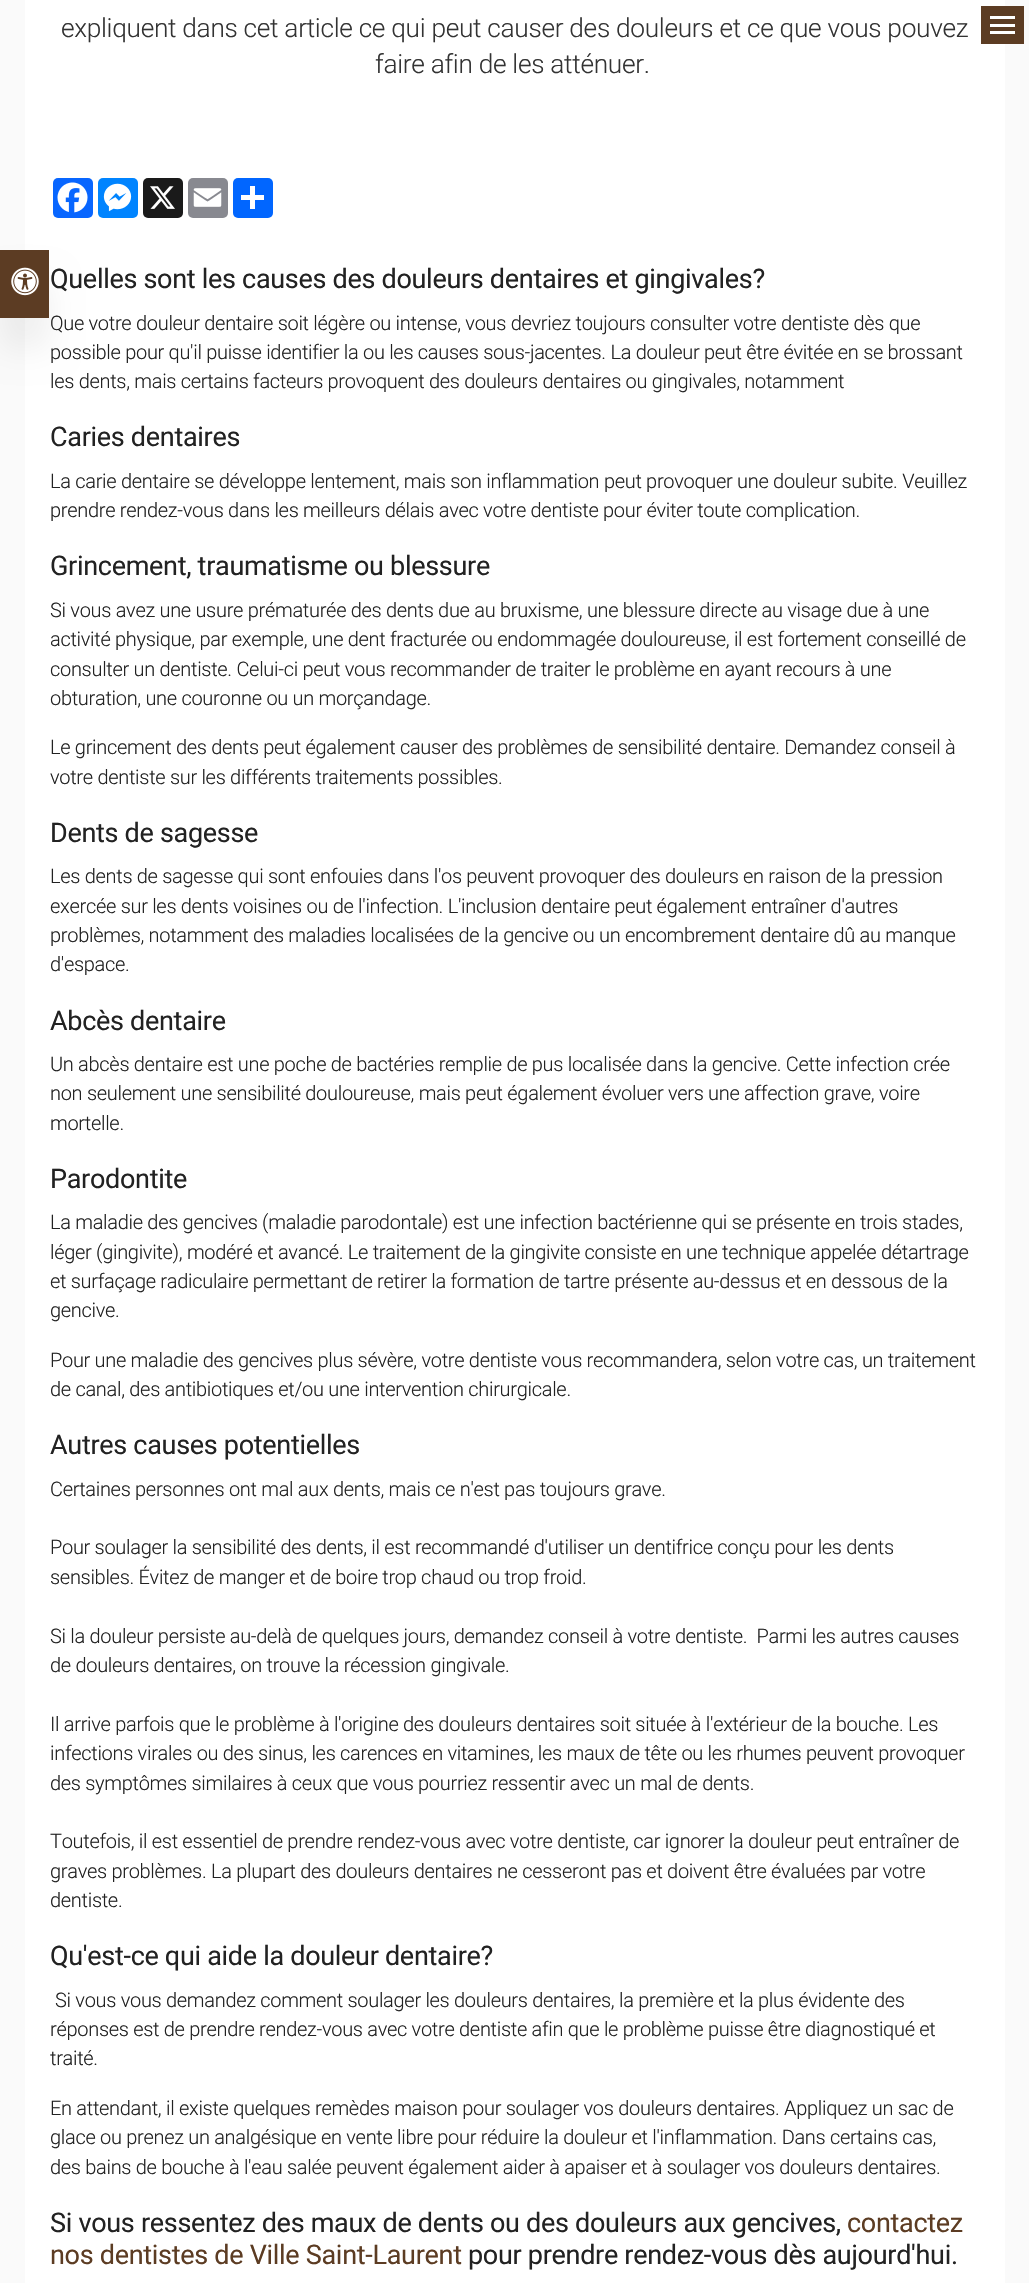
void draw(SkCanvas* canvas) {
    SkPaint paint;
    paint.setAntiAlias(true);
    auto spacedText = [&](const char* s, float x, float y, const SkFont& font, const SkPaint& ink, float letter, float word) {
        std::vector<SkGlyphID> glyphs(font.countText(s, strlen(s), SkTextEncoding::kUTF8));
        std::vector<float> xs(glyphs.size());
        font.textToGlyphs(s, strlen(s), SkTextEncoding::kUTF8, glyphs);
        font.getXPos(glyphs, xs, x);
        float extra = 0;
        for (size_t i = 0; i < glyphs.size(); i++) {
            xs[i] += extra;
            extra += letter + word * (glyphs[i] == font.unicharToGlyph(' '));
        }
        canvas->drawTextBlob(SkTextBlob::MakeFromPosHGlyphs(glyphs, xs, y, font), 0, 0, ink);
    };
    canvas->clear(0xFFFAFAFA);
    paint.setColor(0xFFFFFFFF);
    canvas->drawRect(SkRect::MakeXYWH(25, 0, 980, 2283), paint);
    paint.setColor(0x0F000000);
    paint.setMaskFilter(SkMaskFilter::MakeBlur(kNormal_SkBlurStyle, 15.5f));
    canvas->drawRect(SkRect::MakeXYWH(0, 281, 49, 68), paint);
    paint.setMaskFilter(nullptr);
    paint.setColor(0xFF5C3C23);
    canvas->drawRect(SkRect::MakeXYWH(0, 250, 49, 68), paint);
    canvas->drawImageRect(SkImages::DeferredFromEncodedData(SkData::MakeFromFileName("img1.png")), SkRect::MakeXYWH(11, 267, 28, 29), SkSamplingOptions());
    SkFont font1(fontMgr->matchFamilyStyle("Roboto", SkFontStyle(300, SkFontStyle::kNormal_Width, SkFontStyle::kUpright_Slant)), 26.25f);
    font1.setSubpixel(true);
    paint.setColor(0xFF333333);
    spacedText("expliquent dans cet article ce qui peut causer des douleurs et ce que vous pouvez", 61, 37, font1, paint, -0.3f, 0);
    spacedText("faire afin de les atténuer.", 375, 73, font1, paint, -0.3f, 0);
    paint.setColor(0xFF0866FF);
    canvas->drawRoundRect(SkRect::MakeXYWH(53, 178, 40, 40), 5, 5, paint);
    canvas->drawImageRect(SkImages::DeferredFromEncodedData(SkData::MakeFromFileName("img2.png")), SkRect::MakeXYWH(57, 182, 31, 31), SkSamplingOptions());
    paint.setColor(0xFF0084FF);
    canvas->drawRoundRect(SkRect::MakeXYWH(98, 178, 40, 40), 5, 5, paint);
    canvas->drawImageRect(SkImages::DeferredFromEncodedData(SkData::MakeFromFileName("img3.png")), SkRect::MakeXYWH(103, 183, 29, 29), SkSamplingOptions());
    paint.setColor(0xFF1A1A1A);
    canvas->drawRoundRect(SkRect::MakeXYWH(143, 178, 40, 40), 5, 5, paint);
    canvas->drawImageRect(SkImages::DeferredFromEncodedData(SkData::MakeFromFileName("img4.png")), SkRect::MakeXYWH(150, 186, 25, 23), SkSamplingOptions());
    paint.setColor(0xFF888990);
    canvas->drawRoundRect(SkRect::MakeXYWH(188, 178, 40, 40), 5, 5, paint);
    canvas->drawImageRect(SkImages::DeferredFromEncodedData(SkData::MakeFromFileName("img5.png")), SkRect::MakeXYWH(193, 188, 29, 19), SkSamplingOptions());
    paint.setColor(0xFF0166FF);
    canvas->drawRoundRect(SkRect::MakeXYWH(233, 178, 40, 40), 5, 5, paint);
    paint.setColor(0xFFFFFFFF);
    canvas->drawRect(SkRect::MakeXYWH(250, 186, 5, 23), paint);
    canvas->drawRect(SkRect::MakeXYWH(241, 195, 23, 5), paint);
    SkFont font2(fontMgr->matchFamilyStyle("Roboto", SkFontStyle::Normal()), 27);
    font2.setSubpixel(true);
    paint.setColor(0xFF222222);
    spacedText("Quelles sont les causes des douleurs dentaires et gingivales?", 50, 288, font2, paint, -0.3f, 0);
    SkFont font3(fontMgr->matchFamilyStyle("Roboto", SkFontStyle(300, SkFontStyle::kNormal_Width, SkFontStyle::kUpright_Slant)), 20);
    font3.setSubpixel(true);
    spacedText("Que votre douleur dentaire soit légère ou intense, vous devriez toujours consulter votre dentiste dès que", 50, 330, font3, paint, -0.3f, 0);
    spacedText("possible pour qu'il puisse identifier la ou les causes sous-jacentes. La douleur peut être évitée en se brossant", 50, 359, font3, paint, -0.3f, 0);
    spacedText("les dents, mais certains facteurs provoquent des douleurs dentaires ou gingivales, notamment", 50, 388, font3, paint, -0.3f, 0);
    spacedText("Caries dentaires", 50, 446, font2, paint, -0.3f, 0);
    spacedText("La carie dentaire se développe lentement, mais son inflammation peut provoquer une douleur subite. Veuillez", 50, 488, font3, paint, -0.3f, 0);
    spacedText("prendre rendez-vous dans les meilleurs délais avec votre dentiste pour éviter toute complication.", 50, 517, font3, paint, -0.3f, 0);
    spacedText("Grincement, traumatisme ou blessure", 50, 575, font2, paint, -0.3f, 0);
    spacedText("Si vous avez une usure prématurée des dents due au bruxisme, une blessure directe au visage due à une", 50, 617, font3, paint, -0.3f, 0);
    spacedText("activité physique, par exemple, une dent fracturée ou endommagée douloureuse, il est fortement conseillé de", 50, 646, font3, paint, -0.3f, 0);
    spacedText("consulter un dentiste. Celui-ci peut vous recommander de traiter le problème en ayant recours à une", 50, 676, font3, paint, -0.3f, 0);
    spacedText("obturation, une couronne ou un morçandage.", 50, 705, font3, paint, -0.3f, 0);
    spacedText("Le grincement des dents peut également causer des problèmes de sensibilité dentaire. Demandez conseil à", 50, 754, font3, paint, -0.3f, 0);
    spacedText("votre dentiste sur les différents traitements possibles.", 50, 784, font3, paint, -0.3f, 0);
    spacedText("Dents de sagesse", 50, 842, font2, paint, -0.3f, 0);
    spacedText("Les dents de sagesse qui sont enfouies dans l'os peuvent provoquer des douleurs en raison de la pression", 50, 883, font3, paint, -0.3f, 0);
    spacedText("exercée sur les dents voisines ou de l'infection. L'inclusion dentaire peut également entraîner d'autres", 50, 913, font3, paint, -0.3f, 0);
    spacedText("problèmes, notamment des maladies localisées de la gencive ou un encombrement dentaire dû au manque", 50, 942, font3, paint, -0.3f, 0);
    spacedText("d'espace.", 50, 971, font3, paint, -0.3f, 0);
    spacedText("Abcès dentaire", 50, 1030, font2, paint, -0.3f, 0);
    spacedText("Un abcès dentaire est une poche de bactéries remplie de pus localisée dans la gencive. Cette infection crée", 50, 1071, font3, paint, -0.3f, 0);
    spacedText("non seulement une sensibilité douloureuse, mais peut également évoluer vers une affection grave, voire", 50, 1100, font3, paint, -0.3f, 0);
    spacedText("mortelle.", 50, 1130, font3, paint, -0.3f, 0);
    spacedText("Parodontite", 50, 1188, font2, paint, -0.3f, 0);
    spacedText("La maladie des gencives (maladie parodontale) est une infection bactérienne qui se présente en trois stades,", 50, 1229, font3, paint, -0.3f, 0);
    spacedText("léger (gingivite), modéré et avancé. Le traitement de la gingivite consiste en une technique appelée détartrage", 50, 1259, font3, paint, -0.3f, 0);
    spacedText("et surfaçage radiculaire permettant de retirer la formation de tartre présente au-dessus et en dessous de la", 50, 1288, font3, paint, -0.3f, 0);
    spacedText("gencive.", 50, 1317, font3, paint, -0.3f, 0);
    spacedText("Pour une maladie des gencives plus sévère, votre dentiste vous recommandera, selon votre cas, un traitement", 50, 1367, font3, paint, -0.3f, 0);
    spacedText("de canal, des antibiotiques et/ou une intervention chirurgicale.", 50, 1396, font3, paint, -0.3f, 0);
    spacedText("Autres causes potentielles", 50, 1454, font2, paint, -0.3f, 0);
    spacedText("Certaines personnes ont mal aux dents, mais ce n'est pas toujours grave.", 50, 1496, font3, paint, -0.3f, 0);
    spacedText("Pour soulager la sensibilité des dents, il est recommandé d'utiliser un dentifrice conçu pour les dents", 50, 1554, font3, paint, -0.3f, 0);
    spacedText("sensibles. Évitez de manger et de boire trop chaud ou trop froid.", 50, 1584, font3, paint, -0.3f, 0);
    spacedText("Si la douleur persiste au-delà de quelques jours, demandez conseil à votre dentiste.  Parmi les autres causes", 50, 1643, font3, paint, -0.3f, 0);
    spacedText("de douleurs dentaires, on trouve la récession gingivale.", 50, 1672, font3, paint, -0.3f, 0);
    spacedText("Il arrive parfois que le problème à l'origine des douleurs dentaires soit située à l'extérieur de la bouche. Les", 50, 1731, font3, paint, -0.3f, 0);
    spacedText("infections virales ou des sinus, les carences en vitamines, les maux de tête ou les rhumes peuvent provoquer", 50, 1760, font3, paint, -0.3f, 0);
    spacedText("des symptômes similaires à ceux que vous pourriez ressentir avec un mal de dents.", 50, 1790, font3, paint, -0.3f, 0);
    spacedText("Toutefois, il est essentiel de prendre rendez-vous avec votre dentiste, car ignorer la douleur peut entraîner de", 50, 1848, font3, paint, -0.3f, 0);
    spacedText("graves problèmes. La plupart des douleurs dentaires ne cesseront pas et doivent être évaluées par votre", 50, 1878, font3, paint, -0.3f, 0);
    spacedText("dentiste.", 50, 1907, font3, paint, -0.3f, 0);
    spacedText("Qu'est-ce qui aide la douleur dentaire?", 50, 1965, font2, paint, -0.3f, 0);
    spacedText("Si vous vous demandez comment soulager les douleurs dentaires, la première et la plus évidente des", 55, 2007, font3, paint, -0.3f, 0);
    spacedText("réponses est de prendre rendez-vous avec votre dentiste afin que le problème puisse être diagnostiqué et", 50, 2036, font3, paint, -0.3f, 0);
    spacedText("traité.", 50, 2065, font3, paint, -0.3f, 0);
    spacedText("En attendant, il existe quelques remèdes maison pour soulager vos douleurs dentaires. Appliquez un sac de", 50, 2115, font3, paint, -0.3f, 0);
    spacedText("glace ou prenez un analgésique en vente libre pour réduire la douleur et l'inflammation. Dans certains cas,", 50, 2144, font3, paint, -0.3f, 0);
    spacedText("des bains de bouche à l'eau salée peuvent également aider à apaiser et à soulager vos douleurs dentaires.", 50, 2174, font3, paint, -0.3f, 0);
    spacedText("Si vous ressentez des maux de dents ou des douleurs aux gencives,", 50, 2232, font2, paint, -0.3f, 0);
    paint.setColor(0xFF5C3C23);
    spacedText("contactez", 847, 2232, font2, paint, -0.3f, 0);
    spacedText("nos dentistes de Ville Saint-Laurent", 50, 2264, font2, paint, -0.3f, 0);
    paint.setColor(0xFF222222);
    spacedText("pour prendre rendez-vous dès aujourd'hui.", 468, 2264, font2, paint, -0.3f, 0);
    paint.setColor(0xFF5C3C23);
    canvas->drawRect(SkRect::MakeXYWH(981, 6, 43, 38), paint);
    paint.setColor(0xFFFFFFFF);
    canvas->drawRect(SkRect::MakeXYWH(990, 16, 25, 3), paint);
    canvas->drawRect(SkRect::MakeXYWH(990, 24, 25, 3), paint);
    canvas->drawRect(SkRect::MakeXYWH(990, 31, 25, 3), paint);
}
